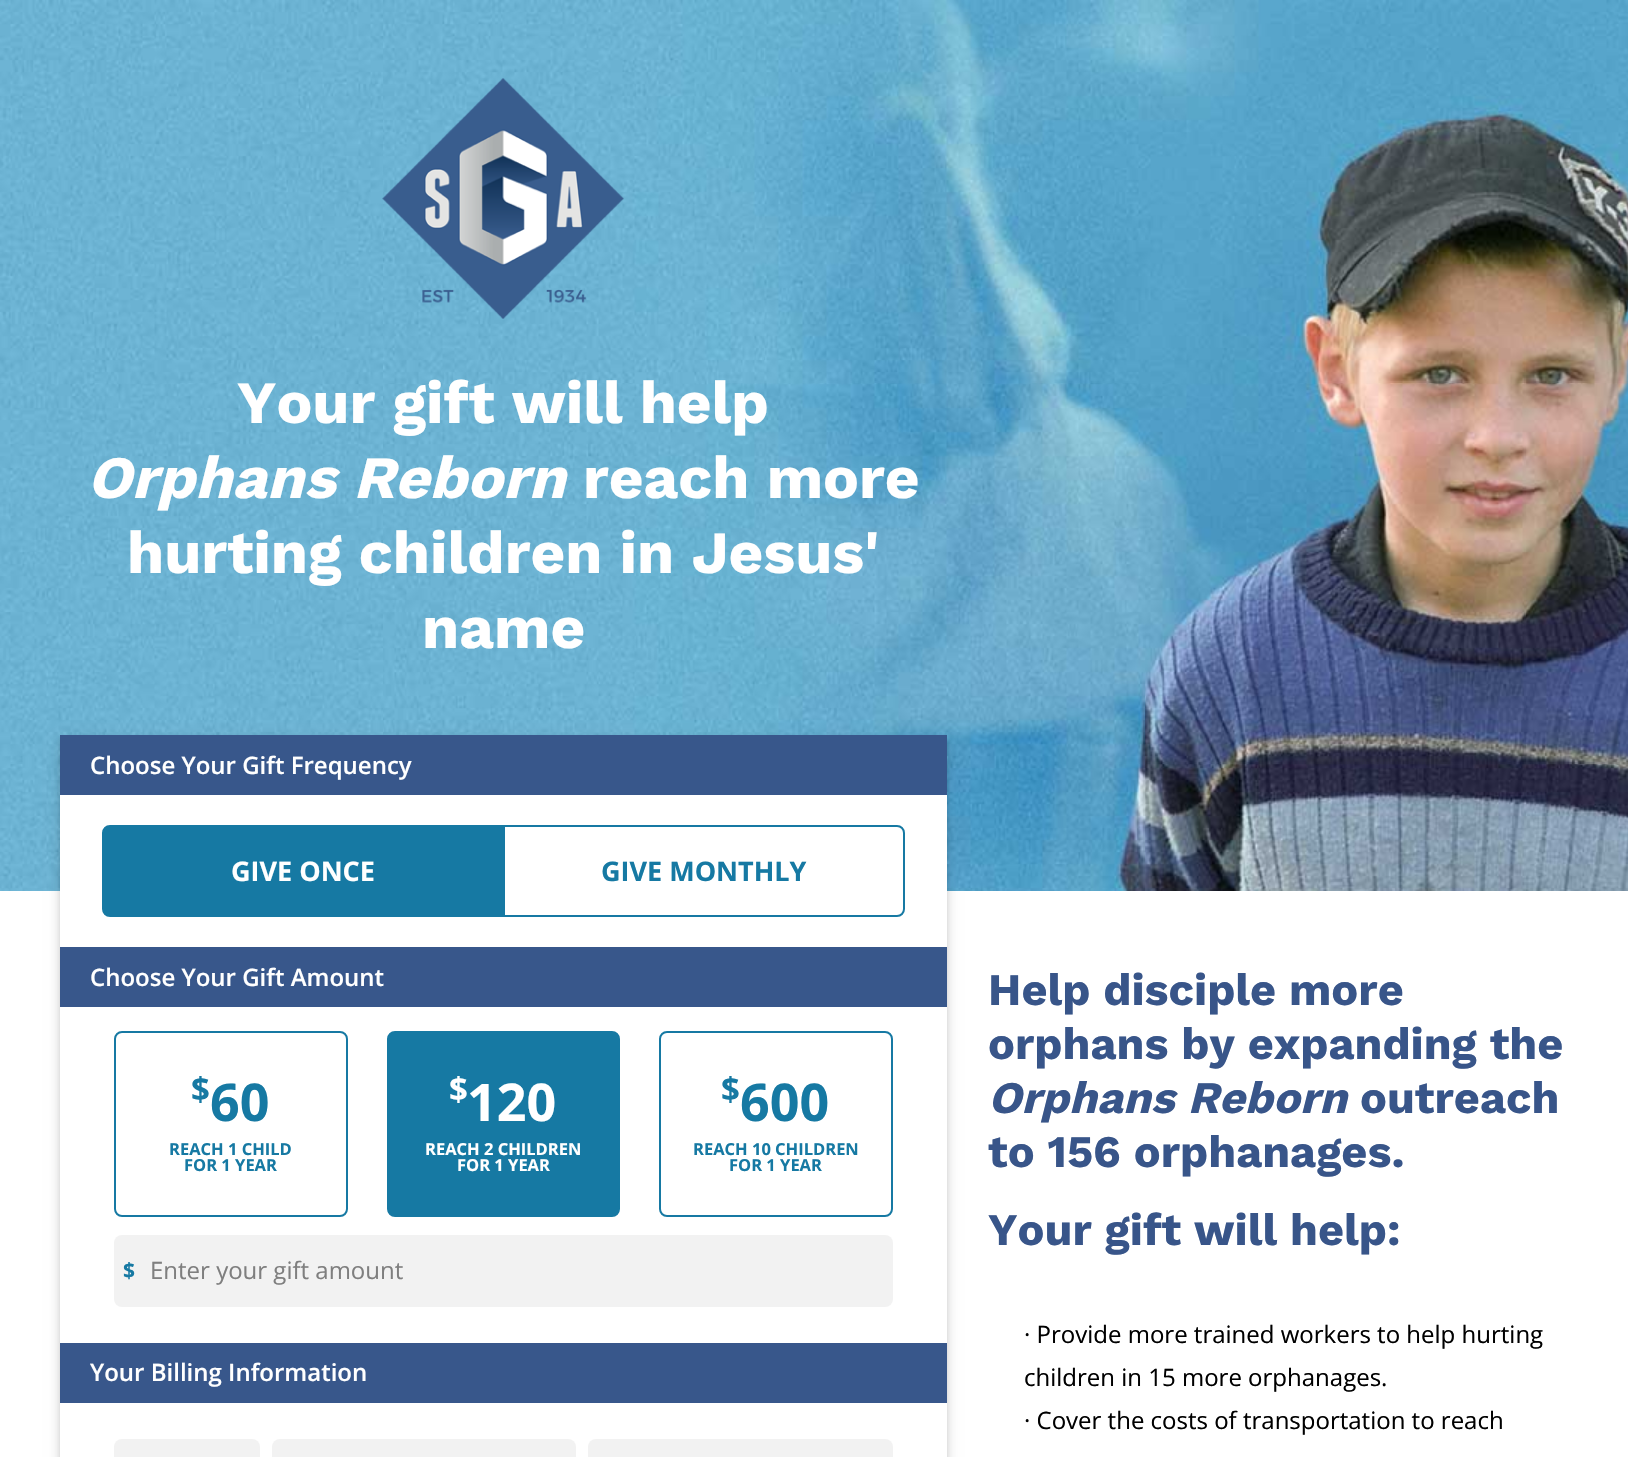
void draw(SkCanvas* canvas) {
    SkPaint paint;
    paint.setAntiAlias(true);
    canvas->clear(0xFFFFFFFF);
    canvas->drawImageRect(SkImages::DeferredFromEncodedData(SkData::MakeFromFileName("img1.png")), SkRect::MakeXYWH(0, 0, 1628, 891), SkSamplingOptions());
    canvas->drawImageRect(SkImages::DeferredFromEncodedData(SkData::MakeFromFileName("img2.png")), SkRect::MakeXYWH(382, 78, 242, 241), SkSamplingOptions());
    SkFont font1(fontMgr->matchFamilyStyle("Work Sans", SkFontStyle::Bold()), 60);
    font1.setSubpixel(true);
    paint.setColor(0xFFFFFFFF);
    canvas->drawString("Your gift will help", 237, 423, font1, paint);
    SkFont font2(fontMgr->matchFamilyStyle("Work Sans", SkFontStyle::BoldItalic()), 60);
    font2.setSubpixel(true);
    canvas->drawString("Orphans Reborn", 87, 498, font2, paint);
    canvas->drawString("reach more", 583, 498, font1, paint);
    canvas->drawString("hurting children in Jesus'", 127, 573, font1, paint);
    canvas->drawString("name", 422, 648, font1, paint);
    paint.setColor(0x1F000000);
    paint.setMaskFilter(SkMaskFilter::MakeBlur(kNormal_SkBlurStyle, 3));
    canvas->drawRect(SkRect::MakeXYWH(60, 738, 887, 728), paint);
    paint.setMaskFilter(nullptr);
    paint.setMaskFilter(SkMaskFilter::MakeBlur(kNormal_SkBlurStyle, 6));
    canvas->drawRect(SkRect::MakeXYWH(60, 741, 887, 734), paint);
    paint.setMaskFilter(nullptr);
    paint.setColor(0xFFFFFFFF);
    canvas->drawRect(SkRect::MakeXYWH(60, 795, 887, 662), paint);
    paint.setColor(0xFF38578B);
    canvas->drawRect(SkRect::MakeXYWH(60, 735, 887, 60), paint);
    SkFont font3(fontMgr->matchFamilyStyle("Open Sans", SkFontStyle(600, SkFontStyle::kNormal_Width, SkFontStyle::kUpright_Slant)), 24);
    font3.setSubpixel(true);
    paint.setColor(0xFFFFFFFF);
    canvas->drawString("Choose Your Gift Frequency", 90, 774, font3, paint);
    paint.setColor(0xFF1679A3);
    canvas->drawPath(SkPathBuilder().moveTo(110, 826).lineTo(502, 826).lineTo(502, 916).lineTo(110, 916).cubicTo(106, 916, 103, 913, 103, 909).lineTo(103, 833).cubicTo(103, 829, 106, 826, 110, 826).close().detach(), paint);
    paint.setStyle(SkPaint::kStroke_Style);
    paint.setStrokeWidth(2);
    canvas->drawPath(SkPathBuilder().moveTo(110, 826).lineTo(502, 826).lineTo(502, 916).lineTo(110, 916).cubicTo(106, 916, 103, 913, 103, 909).lineTo(103, 833).cubicTo(103, 829, 106, 826, 110, 826).close().detach(), paint);
    SkFont font4(fontMgr->matchFamilyStyle("Open Sans", SkFontStyle::Bold()), 27);
    font4.setSubpixel(true);
    paint.setStyle(SkPaint::kFill_Style);
    paint.setColor(0xFFFFFFFF);
    canvas->drawString("GIVE ONCE", 231, 881, font4, paint);
    paint.setStyle(SkPaint::kStroke_Style);
    paint.setColor(0xFF1679A3);
    canvas->drawPath(SkPathBuilder().moveTo(504, 826).lineTo(897, 826).cubicTo(901, 826, 904, 829, 904, 833).lineTo(904, 909).cubicTo(904, 913, 901, 916, 897, 916).lineTo(504, 916).close().detach(), paint);
    paint.setStyle(SkPaint::kFill_Style);
    canvas->drawString("GIVE MONTHLY", 601, 881, font4, paint);
    paint.setColor(0xFF38578B);
    canvas->drawRect(SkRect::MakeXYWH(60, 947, 887, 60), paint);
    paint.setColor(0xFFFFFFFF);
    canvas->drawString("Choose Your Gift Amount", 90, 986, font3, paint);
    paint.setStyle(SkPaint::kStroke_Style);
    paint.setColor(0xFF1679A3);
    canvas->drawRoundRect(SkRect::MakeXYWH(115, 1032, 232, 184), 7, 7, paint);
    SkFont font5(fontMgr->matchFamilyStyle("Open Sans", SkFontStyle::Bold()), 33);
    font5.setSubpixel(true);
    paint.setStyle(SkPaint::kFill_Style);
    canvas->drawString("$", 191, 1101, font5, paint);
    SkFont font6(fontMgr->matchFamilyStyle("Open Sans", SkFontStyle::Bold()), 52);
    font6.setSubpixel(true);
    canvas->drawString("60", 210, 1121, font6, paint);
    SkFont font7(fontMgr->matchFamilyStyle("Open Sans", SkFontStyle::Bold()), 16.5f);
    font7.setSubpixel(true);
    canvas->drawString("REACH 1 CHILD", 169, 1155, font7, paint);
    canvas->drawString("FOR 1 YEAR", 184, 1171, font7, paint);
    canvas->drawRoundRect(SkRect::MakeXYWH(388, 1032, 231, 184), 7, 7, paint);
    paint.setStyle(SkPaint::kStroke_Style);
    canvas->drawRoundRect(SkRect::MakeXYWH(388, 1032, 231, 184), 7, 7, paint);
    paint.setStyle(SkPaint::kFill_Style);
    paint.setColor(0xFFFFFFFF);
    canvas->drawString("$", 449, 1101, font5, paint);
    canvas->drawString("120", 467, 1121, font6, paint);
    canvas->drawString("REACH 2 CHILDREN", 425, 1155, font7, paint);
    canvas->drawString("FOR 1 YEAR", 457, 1171, font7, paint);
    paint.setStyle(SkPaint::kStroke_Style);
    paint.setColor(0xFF1679A3);
    canvas->drawRoundRect(SkRect::MakeXYWH(660, 1032, 232, 184), 7, 7, paint);
    paint.setStyle(SkPaint::kFill_Style);
    canvas->drawString("$", 721, 1101, font5, paint);
    canvas->drawString("600", 740, 1121, font6, paint);
    canvas->drawString("REACH 10 CHILDREN", 693, 1155, font7, paint);
    canvas->drawString("FOR 1 YEAR", 729, 1171, font7, paint);
    paint.setColor(0xFFF2F2F2);
    canvas->drawRoundRect(SkRect::MakeXYWH(114, 1235, 779, 72), 8, 8, paint);
    SkFont font8(fontMgr->matchFamilyStyle("Open Sans", SkFontStyle::Bold()), 21);
    font8.setSubpixel(true);
    paint.setColor(0xFF1679A3);
    canvas->drawString("$", 123, 1278, font8, paint);
    SkFont font9(fontMgr->matchFamilyStyle("Open Sans", SkFontStyle::Normal()), 24);
    font9.setSubpixel(true);
    paint.setColor(0xFF7F7F7F);
    canvas->drawString("Enter your gift amount", 150, 1279, font9, paint);
    paint.setColor(0xFF38578B);
    canvas->drawRect(SkRect::MakeXYWH(60, 1343, 887, 60), paint);
    paint.setColor(0xFFFFFFFF);
    canvas->drawString("Your Billing Information", 90, 1381, font3, paint);
    paint.setColor(0xFFF2F2F2);
    canvas->drawRoundRect(SkRect::MakeXYWH(114, 1439, 146, 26), 8, 8, paint);
    canvas->drawRoundRect(SkRect::MakeXYWH(272, 1439, 304, 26), 8, 8, paint);
    canvas->drawRoundRect(SkRect::MakeXYWH(588, 1439, 305, 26), 8, 8, paint);
    SkFont font10(fontMgr->matchFamilyStyle("Work Sans", SkFontStyle::Bold()), 45);
    font10.setSubpixel(true);
    paint.setColor(0xFF385589);
    canvas->drawString("Help disciple more", 988, 1005, font10, paint);
    canvas->drawString("orphans by expanding the", 988, 1059, font10, paint);
    SkFont font11(fontMgr->matchFamilyStyle("Work Sans", SkFontStyle::BoldItalic()), 45);
    font11.setSubpixel(true);
    canvas->drawString("Orphans Reborn", 988, 1113, font11, paint);
    canvas->drawString("outreach", 1360, 1113, font10, paint);
    canvas->drawString("to 156 orphanages.", 988, 1167, font10, paint);
    canvas->drawString("Your gift will help:", 988, 1245, font10, paint);
    paint.setColor(0xFF000000);
    canvas->drawString("· Provide more trained workers to help hurting", 1024, 1343, font9, paint);
    canvas->drawString("children in 15 more orphanages.", 1024, 1386, font9, paint);
    canvas->drawString("· Cover the costs of transportation to reach", 1024, 1429, font9, paint);
}
